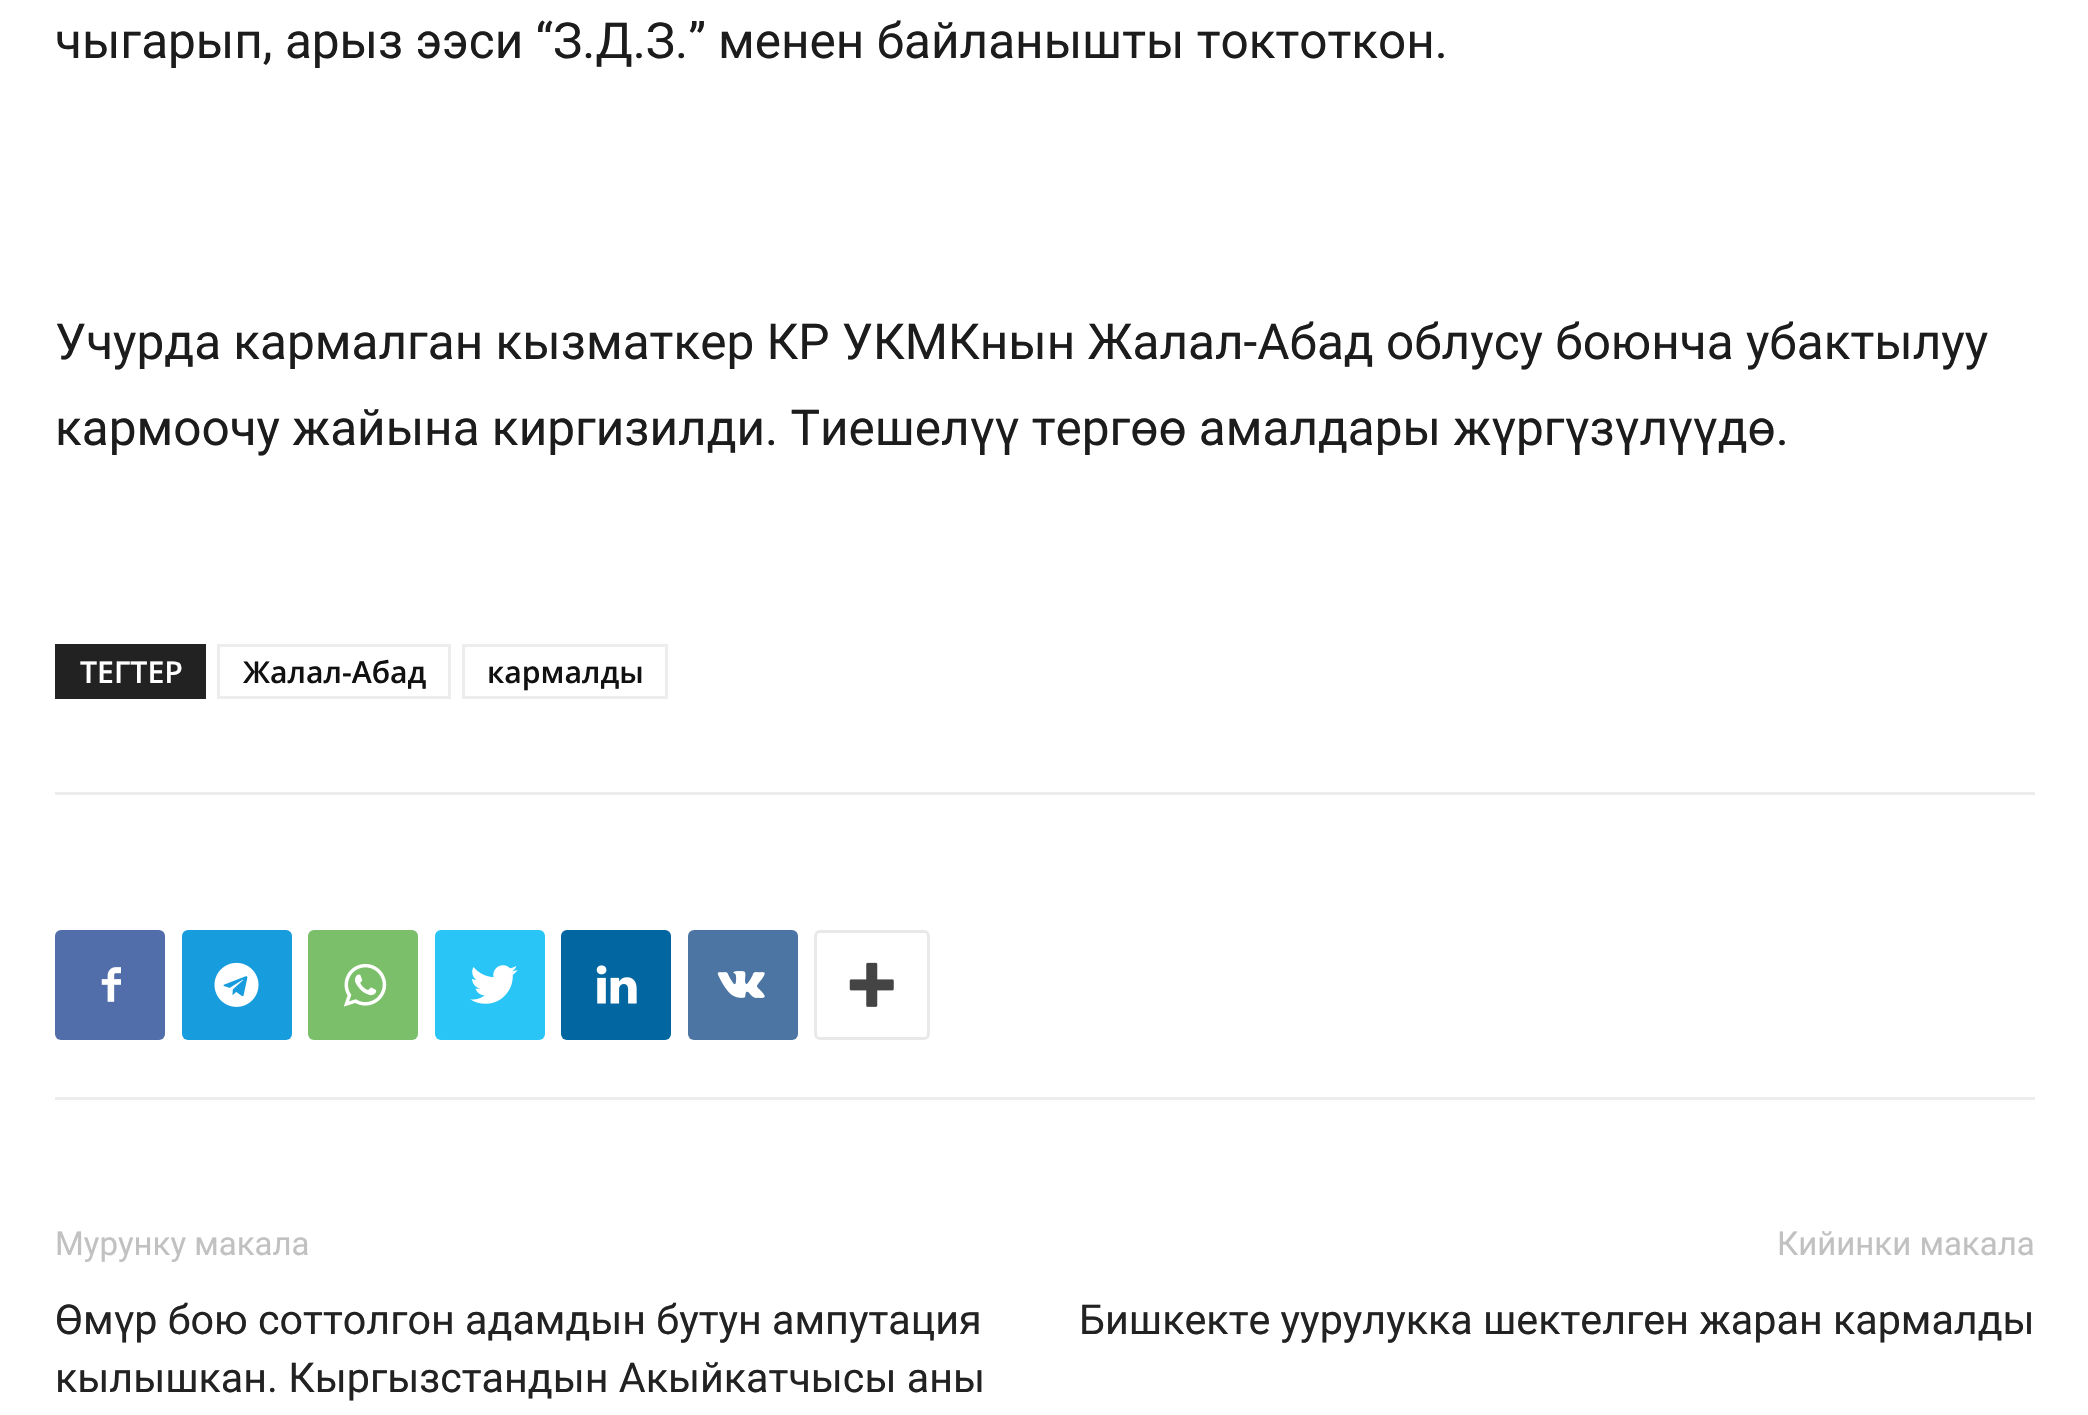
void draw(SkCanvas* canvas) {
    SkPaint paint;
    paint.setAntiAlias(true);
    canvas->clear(0xFFFFFFFF);
    SkFont font1(fontMgr->matchFamilyStyle("Roboto", SkFontStyle::Normal()), 49.5f);
    font1.setSubpixel(true);
    paint.setColor(0xFF1C1C1C);
    canvas->drawString("чыгарып, арыз ээси “З.Д.З.” менен байланышты токтоткон.", 55, 58, font1, paint);
    canvas->drawString("Учурда кармалган кызматкер КР УКМКнын Жалал-Абад облусу боюнча убактылуу", 55, 359, font1, paint);
    canvas->drawString("кармоочу жайына киргизилди. Тиешелүү тергөө амалдары жүргүзүлүүдө.", 55, 445, font1, paint);
    paint.setColor(0xFF222222);
    canvas->drawRect(SkRect::MakeXYWH(55, 644, 151, 55), paint);
    SkFont font2(fontMgr->matchFamilyStyle("Open Sans", SkFontStyle(600, SkFontStyle::kNormal_Width, SkFontStyle::kUpright_Slant)), 30.25f);
    font2.setSubpixel(true);
    paint.setColor(0xFFFFFFFF);
    canvas->drawString("ТЕГТЕР", 80, 683, font2, paint);
    paint.setStyle(SkPaint::kStroke_Style);
    paint.setStrokeWidth(3);
    paint.setColor(0xFFEDEDED);
    canvas->drawRect(SkRect::MakeXYWH(218.5f, 645.5f, 231, 52), paint);
    paint.setStyle(SkPaint::kFill_Style);
    paint.setColor(0xFF111111);
    canvas->drawString("Жалал-Абад", 243, 683, font2, paint);
    paint.setStyle(SkPaint::kStroke_Style);
    paint.setColor(0xFFEDEDED);
    canvas->drawRect(SkRect::MakeXYWH(463.5f, 645.5f, 203, 52), paint);
    paint.setStyle(SkPaint::kFill_Style);
    paint.setColor(0xFF111111);
    canvas->drawString("кармалды", 487, 683, font2, paint);
    paint.setColor(0xFFEDEDED);
    canvas->drawRect(SkRect::MakeXYWH(55, 792, 1980, 3), paint);
    canvas->drawRect(SkRect::MakeXYWH(55, 1097, 1980, 3), paint);
    paint.setColor(0xFF516EAB);
    canvas->drawRoundRect(SkRect::MakeXYWH(55, 930, 110, 110), 6, 6, paint);
    canvas->drawImageRect(SkImages::DeferredFromEncodedData(SkData::MakeFromFileName("img1.png")), SkRect::MakeXYWH(101, 967, 20, 35), SkSamplingOptions());
    paint.setColor(0xFF179CDE);
    canvas->drawRoundRect(SkRect::MakeXYWH(182, 930, 110, 110), 6, 6, paint);
    canvas->drawImageRect(SkImages::DeferredFromEncodedData(SkData::MakeFromFileName("img2.png")), SkRect::MakeXYWH(214, 962, 45, 45), SkSamplingOptions());
    paint.setColor(0xFF7BBF6A);
    canvas->drawRoundRect(SkRect::MakeXYWH(308, 930, 110, 110), 6, 6, paint);
    canvas->drawImageRect(SkImages::DeferredFromEncodedData(SkData::MakeFromFileName("img3.png")), SkRect::MakeXYWH(343, 963, 44, 44), SkSamplingOptions());
    paint.setColor(0xFF29C5F6);
    canvas->drawRoundRect(SkRect::MakeXYWH(435, 930, 110, 110), 6, 6, paint);
    canvas->drawImageRect(SkImages::DeferredFromEncodedData(SkData::MakeFromFileName("img4.png")), SkRect::MakeXYWH(470, 965, 48, 39), SkSamplingOptions());
    paint.setColor(0xFF0266A0);
    canvas->drawRoundRect(SkRect::MakeXYWH(561, 930, 110, 110), 6, 6, paint);
    canvas->drawImageRect(SkImages::DeferredFromEncodedData(SkData::MakeFromFileName("img5.png")), SkRect::MakeXYWH(596, 965, 41, 39), SkSamplingOptions());
    paint.setColor(0xFF4C75A3);
    canvas->drawRoundRect(SkRect::MakeXYWH(688, 930, 110, 110), 6, 6, paint);
    canvas->drawImageRect(SkImages::DeferredFromEncodedData(SkData::MakeFromFileName("img6.png")), SkRect::MakeXYWH(717, 971, 48, 27), SkSamplingOptions());
    paint.setStyle(SkPaint::kStroke_Style);
    paint.setColor(0xFFE9E9E9);
    canvas->drawRoundRect(SkRect::MakeXYWH(815.5f, 931.5f, 113, 107), 4.5f, 4.5f, paint);
    canvas->drawImageRect(SkImages::DeferredFromEncodedData(SkData::MakeFromFileName("img7.png")), SkRect::MakeXYWH(849, 962, 45, 45), SkSamplingOptions());
    SkFont font3(fontMgr->matchFamilyStyle("Roboto", SkFontStyle::Normal()), 33);
    font3.setSubpixel(true);
    paint.setStyle(SkPaint::kFill_Style);
    paint.setColor(0xFFC1C1C1);
    canvas->drawString("Мурунку макала", 55, 1255, font3, paint);
    SkFont font4(fontMgr->matchFamilyStyle("Roboto", SkFontStyle::Normal()), 41.25f);
    font4.setSubpixel(true);
    paint.setColor(0xFF222222);
    canvas->drawString("Өмүр бою соттолгон адамдын бутун ампутация", 55, 1334, font4, paint);
    canvas->drawString("кылышкан. Кыргызстандын Акыйкатчысы аны", 55, 1392, font4, paint);
    paint.setColor(0xFFC1C1C1);
    canvas->drawString("Кийинки макала", 1777, 1255, font3, paint);
    paint.setColor(0xFF222222);
    canvas->drawString("Бишкекте уурулукка шектелген жаран кармалды", 1079, 1334, font4, paint);
}
